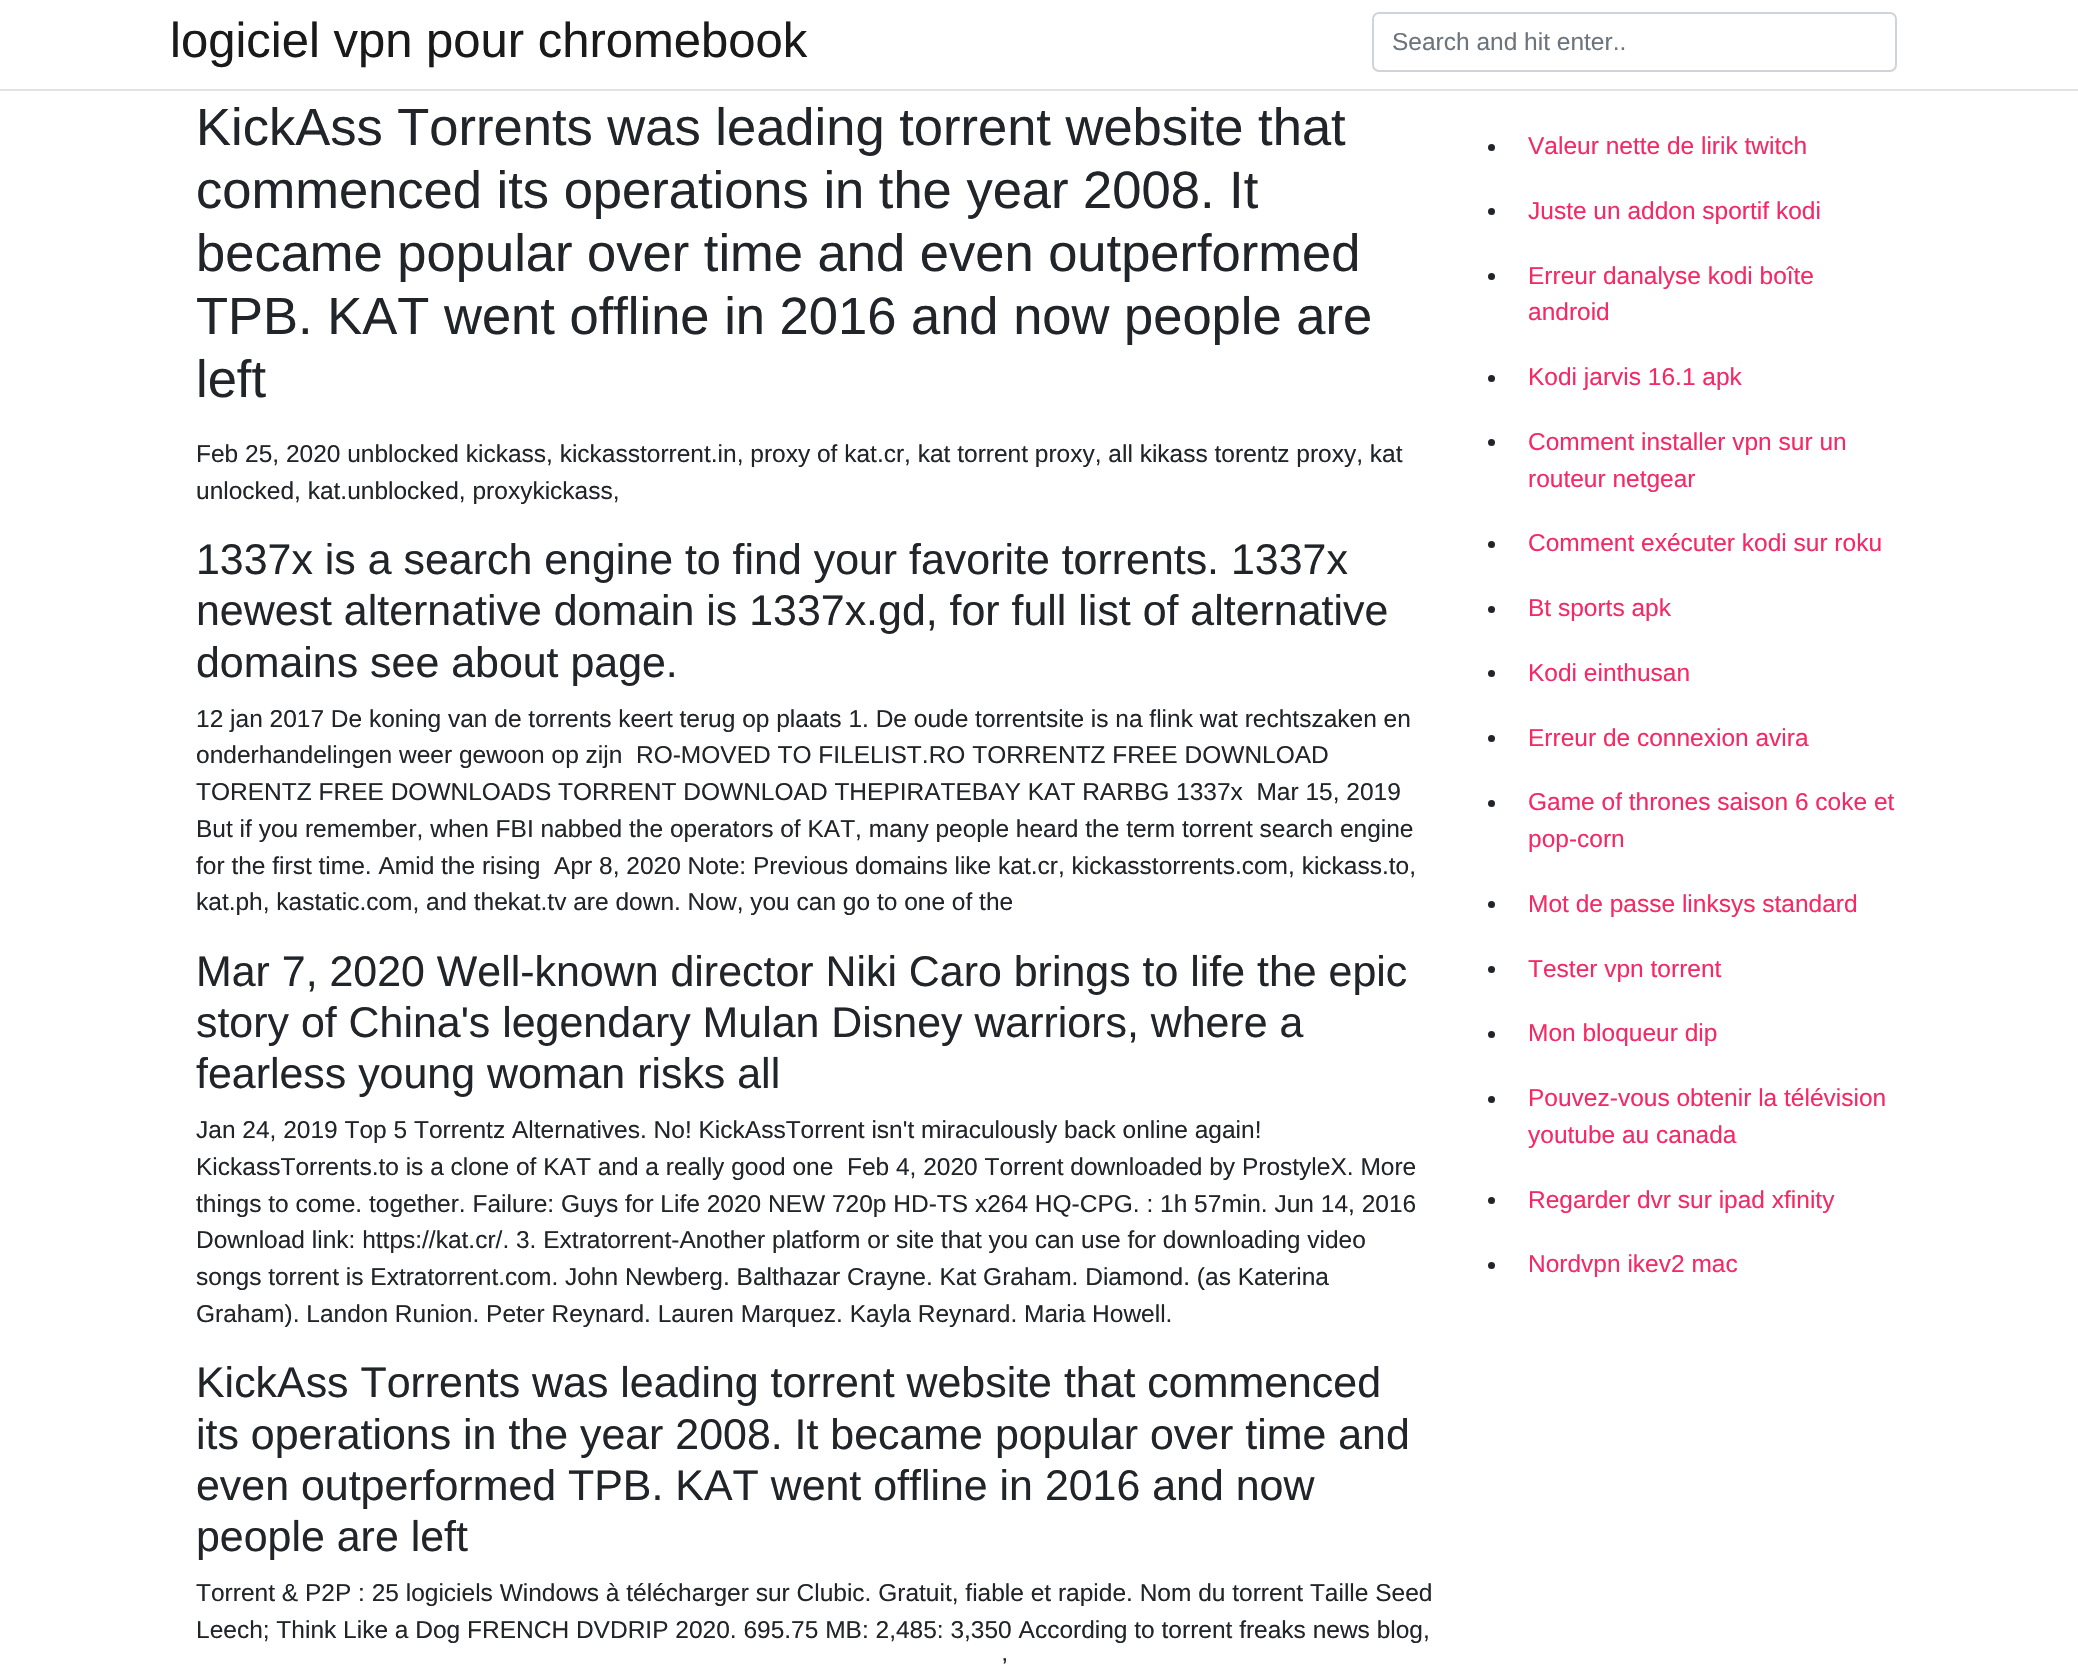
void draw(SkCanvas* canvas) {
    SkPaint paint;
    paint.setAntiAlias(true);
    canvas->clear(0xFFFFFFFF);
    paint.setColor(0xFFE1E2E3);
    canvas->drawRect(SkRect::MakeXYWH(0, 89, 2078, 2), paint);
    SkFont font1(fontMgr->matchFamilyStyle("Liberation Sans", SkFontStyle::Normal()), 49);
    font1.setSubpixel(true);
    paint.setColor(0xFF1A1A1A);
    canvas->drawString("logiciel vpn pour chromebook", 170, 57, font1, paint);
    paint.setStyle(SkPaint::kStroke_Style);
    paint.setStrokeWidth(2);
    paint.setColor(0xFFCED4DA);
    canvas->drawRoundRect(SkRect::MakeXYWH(1373, 13, 523, 58), 6, 6, paint);
    SkFont font2(fontMgr->matchFamilyStyle("Liberation Sans", SkFontStyle::Normal()), 24.5f);
    font2.setSubpixel(true);
    paint.setStyle(SkPaint::kFill_Style);
    paint.setColor(0xFF6C757D);
    canvas->drawString("Search and hit enter..", 1392, 50, font2, paint);
    SkFont font3(fontMgr->matchFamilyStyle("Liberation Sans", SkFontStyle::Normal()), 52.5f);
    font3.setSubpixel(true);
    paint.setColor(0xFF212529);
    canvas->drawString("KickAss Torrents was leading torrent website that", 196, 145, font3, paint);
    canvas->drawString("commenced its operations in the year 2008. It", 196, 208, font3, paint);
    canvas->drawString("became popular over time and even outperformed", 196, 271, font3, paint);
    canvas->drawString("TPB. KAT went offline in 2016 and now people are", 196, 334, font3, paint);
    canvas->drawString("left", 196, 397, font3, paint);
    canvas->drawString("Feb 25, 2020 unblocked kickass, kickasstorrent.in, proxy of kat.cr, kat torrent proxy, all kikass torentz proxy, kat", 196, 462, font2, paint);
    canvas->drawString("unlocked, kat.unblocked, proxykickass,", 196, 499, font2, paint);
    SkFont font4(fontMgr->matchFamilyStyle("Liberation Sans", SkFontStyle::Normal()), 42.9f);
    font4.setSubpixel(true);
    canvas->drawString("1337x is a search engine to find your favorite torrents. 1337x", 196, 574, font4, paint);
    canvas->drawString("newest alternative domain is 1337x.gd, for full list of alternative", 196, 625, font4, paint);
    canvas->drawString("domains see about page.", 196, 677, font4, paint);
    canvas->drawString("12 jan 2017 De koning van de torrents keert terug op plaats 1. De oude torrentsite is na flink wat rechtszaken en", 196, 727, font2, paint);
    canvas->drawString("onderhandelingen weer gewoon op zijn  RO-MOVED TO FILELIST.RO TORRENTZ FREE DOWNLOAD", 196, 763, font2, paint);
    canvas->drawString("TORENTZ FREE DOWNLOADS TORRENT DOWNLOAD THEPIRATEBAY KAT RARBG 1337x  Mar 15, 2019", 196, 800, font2, paint);
    canvas->drawString("But if you remember, when FBI nabbed the operators of KAT, many people heard the term torrent search engine", 196, 837, font2, paint);
    canvas->drawString("for the first time. Amid the rising  Apr 8, 2020 Note: Previous domains like kat.cr, kickasstorrents.com, kickass.to,", 196, 874, font2, paint);
    canvas->drawString("kat.ph, kastatic.com, and thekat.tv are down. Now, you can go to one of the", 196, 910, font2, paint);
    canvas->drawString("Mar 7, 2020 Well-known director Niki Caro brings to life the epic", 196, 986, font4, paint);
    canvas->drawString("story of China's legendary Mulan Disney warriors, where a", 196, 1037, font4, paint);
    canvas->drawString("fearless young woman risks all", 196, 1088, font4, paint);
    canvas->drawString("Jan 24, 2019 Top 5 Torrentz Alternatives. No! KickAssTorrent isn't miraculously back online again!", 196, 1138, font2, paint);
    canvas->drawString("KickassTorrents.to is a clone of KAT and a really good one  Feb 4, 2020 Torrent downloaded by ProstyleX. More", 196, 1175, font2, paint);
    canvas->drawString("things to come. together. Failure: Guys for Life 2020 NEW 720p HD-TS x264 HQ-CPG. : 1h 57min. Jun 14, 2016", 196, 1212, font2, paint);
    canvas->drawString("Download link: https://kat.cr/. 3. Extratorrent-Another platform or site that you can use for downloading video", 196, 1248, font2, paint);
    canvas->drawString("songs torrent is Extratorrent.com. John Newberg. Balthazar Crayne. Kat Graham. Diamond. (as Katerina", 196, 1285, font2, paint);
    canvas->drawString("Graham). Landon Runion. Peter Reynard. Lauren Marquez. Kayla Reynard. Maria Howell.", 196, 1322, font2, paint);
    canvas->drawString("KickAss Torrents was leading torrent website that commenced", 196, 1397, font4, paint);
    canvas->drawString("its operations in the year 2008. It became popular over time and", 196, 1449, font4, paint);
    canvas->drawString("even outperformed TPB. KAT went offline in 2016 and now", 196, 1500, font4, paint);
    canvas->drawString("people are left", 196, 1551, font4, paint);
    canvas->drawString("Torrent & P2P : 25 logiciels Windows à télécharger sur Clubic. Gratuit, fiable et rapide. Nom du torrent Taille Seed", 196, 1601, font2, paint);
    canvas->drawString("Leech; Think Like a Dog FRENCH DVDRIP 2020. 695.75 MB: 2,485: 3,350 According to torrent freaks news blog,", 196, 1638, font2, paint);
    canvas->drawString("’", 1002, 1675, font2, paint);
    canvas->drawCircle(1491.5f, 147.5f, 3.5f, paint);
    paint.setColor(0xFFF42966);
    canvas->drawString("Valeur nette de lirik twitch", 1528, 154, font2, paint);
    paint.setColor(0xFF212529);
    canvas->drawCircle(1491.5f, 211.5f, 3.5f, paint);
    paint.setColor(0xFFF42966);
    canvas->drawString("Juste un addon sportif kodi", 1528, 219, font2, paint);
    paint.setColor(0xFF212529);
    canvas->drawCircle(1491.5f, 276.5f, 3.5f, paint);
    paint.setColor(0xFFF42966);
    canvas->drawString("Erreur danalyse kodi boîte", 1528, 284, font2, paint);
    canvas->drawString("android", 1528, 320, font2, paint);
    paint.setColor(0xFF212529);
    canvas->drawCircle(1491.5f, 378.5f, 3.5f, paint);
    paint.setColor(0xFFF42966);
    canvas->drawString("Kodi jarvis 16.1 apk", 1528, 385, font2, paint);
    paint.setColor(0xFF212529);
    canvas->drawCircle(1491.5f, 442.5f, 3.5f, paint);
    paint.setColor(0xFFF42966);
    canvas->drawString("Comment installer vpn sur un", 1528, 450, font2, paint);
    canvas->drawString("routeur netgear", 1528, 487, font2, paint);
    paint.setColor(0xFF212529);
    canvas->drawCircle(1491.5f, 544.5f, 3.5f, paint);
    paint.setColor(0xFFF42966);
    canvas->drawString("Comment exécuter kodi sur roku", 1528, 551, font2, paint);
    paint.setColor(0xFF212529);
    canvas->drawCircle(1491.5f, 609.5f, 3.5f, paint);
    paint.setColor(0xFFF42966);
    canvas->drawString("Bt sports apk", 1528, 616, font2, paint);
    paint.setColor(0xFF212529);
    canvas->drawCircle(1491.5f, 673.5f, 3.5f, paint);
    paint.setColor(0xFFF42966);
    canvas->drawString("Kodi einthusan", 1528, 681, font2, paint);
    paint.setColor(0xFF212529);
    canvas->drawCircle(1491.5f, 738.5f, 3.5f, paint);
    paint.setColor(0xFFF42966);
    canvas->drawString("Erreur de connexion avira", 1528, 746, font2, paint);
    paint.setColor(0xFF212529);
    canvas->drawCircle(1491.5f, 803.5f, 3.5f, paint);
    paint.setColor(0xFFF42966);
    canvas->drawString("Game of thrones saison 6 coke et", 1528, 810, font2, paint);
    canvas->drawString("pop-corn", 1528, 847, font2, paint);
    paint.setColor(0xFF212529);
    canvas->drawCircle(1491.5f, 904.5f, 3.5f, paint);
    paint.setColor(0xFFF42966);
    canvas->drawString("Mot de passe linksys standard", 1528, 912, font2, paint);
    paint.setColor(0xFF212529);
    canvas->drawCircle(1491.5f, 969.5f, 3.5f, paint);
    paint.setColor(0xFFF42966);
    canvas->drawString("Tester vpn torrent", 1528, 977, font2, paint);
    paint.setColor(0xFF212529);
    canvas->drawCircle(1491.5f, 1034.5f, 3.5f, paint);
    paint.setColor(0xFFF42966);
    canvas->drawString("Mon bloqueur dip", 1528, 1041, font2, paint);
    paint.setColor(0xFF212529);
    canvas->drawCircle(1491.5f, 1099.5f, 3.5f, paint);
    paint.setColor(0xFFF42966);
    canvas->drawString("Pouvez-vous obtenir la télévision", 1528, 1106, font2, paint);
    canvas->drawString("youtube au canada", 1528, 1143, font2, paint);
    paint.setColor(0xFF212529);
    canvas->drawCircle(1491.5f, 1200.5f, 3.5f, paint);
    paint.setColor(0xFFF42966);
    canvas->drawString("Regarder dvr sur ipad xfinity", 1528, 1208, font2, paint);
    paint.setColor(0xFF212529);
    canvas->drawCircle(1491.5f, 1265.5f, 3.5f, paint);
    paint.setColor(0xFFF42966);
    canvas->drawString("Nordvpn ikev2 mac", 1528, 1272, font2, paint);
}
